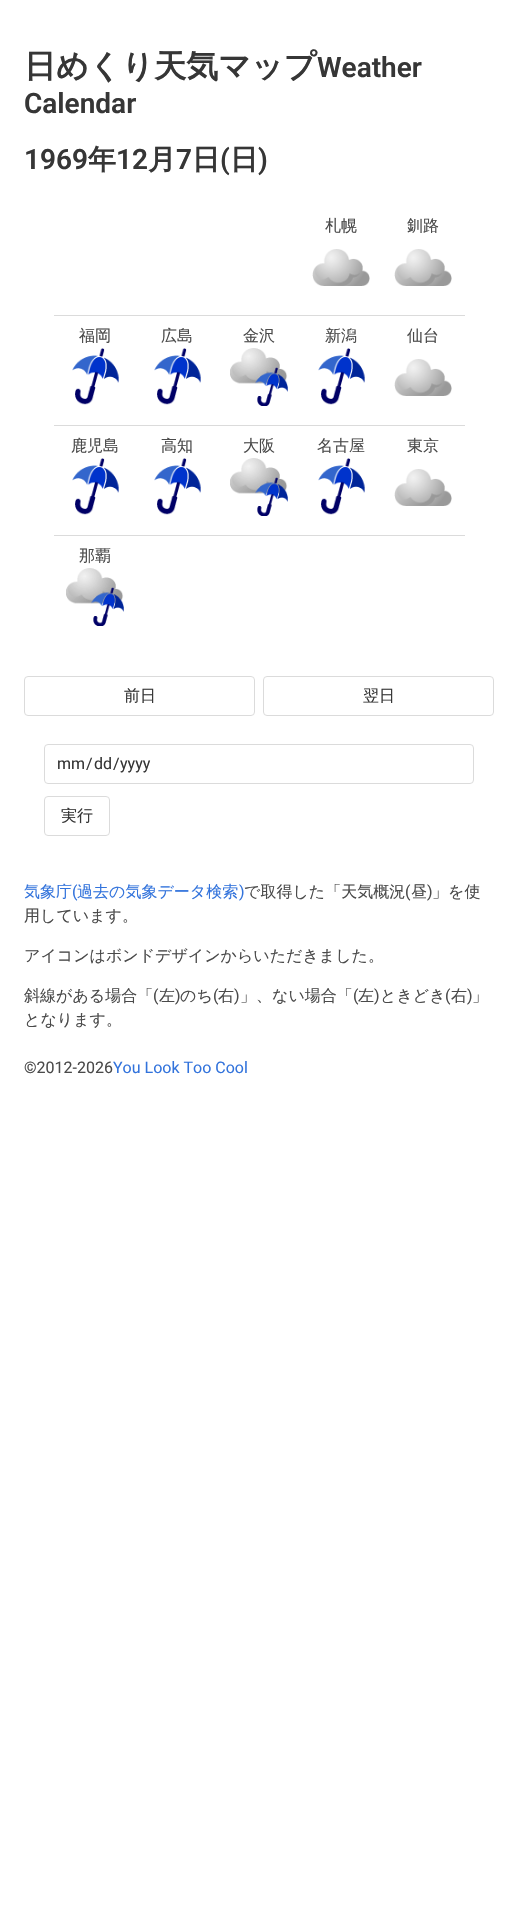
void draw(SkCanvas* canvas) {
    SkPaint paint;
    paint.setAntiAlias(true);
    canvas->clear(0xFFFFFFFF);
    SkFont font1(fontMgr->matchFamilyStyle("WenQuanYi Zen Hei", SkFontStyle::Bold()), 32);
    font1.setSubpixel(true);
    paint.setColor(0xFF363636);
    canvas->drawString("日めくり天気マップ", 24, 77, font1, paint);
    SkFont font2(fontMgr->matchFamilyStyle("Roboto", SkFontStyle(600, SkFontStyle::kNormal_Width, SkFontStyle::kUpright_Slant)), 28);
    font2.setSubpixel(true);
    canvas->drawString("Weather", 317, 77, font2, paint);
    canvas->drawString("Calendar", 24, 113, font2, paint);
    canvas->drawString("1969", 24, 169, font2, paint);
    SkFont font3(fontMgr->matchFamilyStyle("WenQuanYi Zen Hei", SkFontStyle::Bold()), 28);
    font3.setSubpixel(true);
    canvas->drawString("年", 88, 169, font3, paint);
    canvas->drawString("12", 116, 169, font2, paint);
    canvas->drawString("月", 148, 169, font3, paint);
    canvas->drawString("7", 176, 169, font2, paint);
    canvas->drawString("日", 192, 169, font3, paint);
    canvas->drawString("(", 220, 169, font2, paint);
    canvas->drawString("日", 230, 169, font3, paint);
    canvas->drawString(")", 258, 169, font2, paint);
    SkFont font4(fontMgr->matchFamilyStyle("WenQuanYi Zen Hei", SkFontStyle(500, SkFontStyle::kNormal_Width, SkFontStyle::kUpright_Slant)), 16);
    font4.setSubpixel(true);
    paint.setColor(0xFF4A4A4A);
    canvas->drawString("札幌", 325, 231, font4, paint);
    canvas->drawImageRect(SkImages::DeferredFromEncodedData(SkData::MakeFromFileName("img1.png")), SkRect::MakeXYWH(312, 249, 58, 37), SkSamplingOptions());
    paint.setColor(0xFFDBDBDB);
    canvas->drawRect(SkRect::MakeXYWH(54, 315, 411, 1), paint);
    paint.setColor(0xFF4A4A4A);
    canvas->drawString("釧路", 407, 231, font4, paint);
    canvas->drawImageRect(SkImages::DeferredFromEncodedData(SkData::MakeFromFileName("img1.png")), SkRect::MakeXYWH(394, 249, 58, 37), SkSamplingOptions());
    canvas->drawString("福岡", 79, 341, font4, paint);
    canvas->drawImageRect(SkImages::DeferredFromEncodedData(SkData::MakeFromFileName("img2.png")), SkRect::MakeXYWH(72, 348, 47, 57), SkSamplingOptions());
    canvas->drawString("広島", 161, 341, font4, paint);
    canvas->drawImageRect(SkImages::DeferredFromEncodedData(SkData::MakeFromFileName("img2.png")), SkRect::MakeXYWH(154, 348, 47, 57), SkSamplingOptions());
    canvas->drawString("金沢", 243, 341, font4, paint);
    canvas->drawImageRect(SkImages::DeferredFromEncodedData(SkData::MakeFromFileName("img3.png")), SkRect::MakeXYWH(230, 348, 58, 58), SkSamplingOptions());
    canvas->drawString("新潟", 325, 341, font4, paint);
    canvas->drawImageRect(SkImages::DeferredFromEncodedData(SkData::MakeFromFileName("img2.png")), SkRect::MakeXYWH(318, 348, 47, 57), SkSamplingOptions());
    paint.setColor(0xFFDBDBDB);
    canvas->drawRect(SkRect::MakeXYWH(54, 425, 411, 1), paint);
    paint.setColor(0xFF4A4A4A);
    canvas->drawString("仙台", 407, 341, font4, paint);
    canvas->drawImageRect(SkImages::DeferredFromEncodedData(SkData::MakeFromFileName("img1.png")), SkRect::MakeXYWH(394, 359, 58, 37), SkSamplingOptions());
    canvas->drawString("鹿児島", 71, 451, font4, paint);
    canvas->drawImageRect(SkImages::DeferredFromEncodedData(SkData::MakeFromFileName("img2.png")), SkRect::MakeXYWH(72, 458, 47, 57), SkSamplingOptions());
    canvas->drawString("高知", 161, 451, font4, paint);
    canvas->drawImageRect(SkImages::DeferredFromEncodedData(SkData::MakeFromFileName("img2.png")), SkRect::MakeXYWH(154, 458, 47, 57), SkSamplingOptions());
    canvas->drawString("大阪", 243, 451, font4, paint);
    canvas->drawImageRect(SkImages::DeferredFromEncodedData(SkData::MakeFromFileName("img3.png")), SkRect::MakeXYWH(230, 458, 58, 58), SkSamplingOptions());
    canvas->drawString("名古屋", 317, 451, font4, paint);
    canvas->drawImageRect(SkImages::DeferredFromEncodedData(SkData::MakeFromFileName("img2.png")), SkRect::MakeXYWH(318, 458, 47, 57), SkSamplingOptions());
    paint.setColor(0xFFDBDBDB);
    canvas->drawRect(SkRect::MakeXYWH(54, 535, 411, 1), paint);
    paint.setColor(0xFF4A4A4A);
    canvas->drawString("東京", 407, 451, font4, paint);
    canvas->drawImageRect(SkImages::DeferredFromEncodedData(SkData::MakeFromFileName("img1.png")), SkRect::MakeXYWH(394, 469, 58, 37), SkSamplingOptions());
    canvas->drawString("那覇", 79, 561, font4, paint);
    canvas->drawImageRect(SkImages::DeferredFromEncodedData(SkData::MakeFromFileName("img4.png")), SkRect::MakeXYWH(66, 568, 58, 58), SkSamplingOptions());
    paint.setStyle(SkPaint::kStroke_Style);
    paint.setStrokeWidth(1);
    paint.setColor(0xFFDBDBDB);
    canvas->drawRoundRect(SkRect::MakeXYWH(24.5f, 676.5f, 230, 39), 3.5f, 3.5f, paint);
    paint.setStyle(SkPaint::kFill_Style);
    paint.setColor(0xFF363636);
    canvas->drawString("前日", 124, 701, font4, paint);
    paint.setStyle(SkPaint::kStroke_Style);
    paint.setColor(0xFFDBDBDB);
    canvas->drawRoundRect(SkRect::MakeXYWH(263.5f, 676.5f, 230, 39), 3.5f, 3.5f, paint);
    paint.setStyle(SkPaint::kFill_Style);
    paint.setColor(0xFF363636);
    canvas->drawString("翌日", 363, 701, font4, paint);
    paint.setStyle(SkPaint::kStroke_Style);
    paint.setColor(0xFFDBDBDB);
    canvas->drawRoundRect(SkRect::MakeXYWH(44.5f, 744.5f, 429, 39), 3.5f, 3.5f, paint);
    SkFont font5(fontMgr->matchFamilyStyle("Roboto", SkFontStyle::Normal()), 16);
    font5.setSubpixel(true);
    paint.setStyle(SkPaint::kFill_Style);
    paint.setColor(0xFF363636);
    canvas->drawString("mm", 57, 769, font5, paint);
    canvas->drawString("/", 86, 769, font5, paint);
    canvas->drawString("dd", 94, 769, font5, paint);
    canvas->drawString("/", 113, 769, font5, paint);
    canvas->drawString("yyyy", 120, 769, font5, paint);
    paint.setStyle(SkPaint::kStroke_Style);
    paint.setColor(0xFFDBDBDB);
    canvas->drawRoundRect(SkRect::MakeXYWH(44.5f, 796.5f, 65, 39), 3.5f, 3.5f, paint);
    paint.setStyle(SkPaint::kFill_Style);
    paint.setColor(0xFF363636);
    canvas->drawString("実行", 61, 821, font4, paint);
    paint.setColor(0xFF3273DC);
    canvas->drawString("気象庁", 24, 897, font4, paint);
    canvas->drawString("(", 72, 897, font5, paint);
    canvas->drawString("過去の気象データ検索", 77, 897, font4, paint);
    canvas->drawString(")", 239, 897, font5, paint);
    paint.setColor(0xFF4A4A4A);
    canvas->drawString("で取得した「天気概況", 244, 897, font4, paint);
    canvas->drawString("(", 405, 897, font5, paint);
    canvas->drawString("昼", 411, 897, font4, paint);
    canvas->drawString(")", 427, 897, font5, paint);
    canvas->drawString("」を使", 432, 897, font4, paint);
    canvas->drawString("用しています。", 24, 921, font4, paint);
    canvas->drawString("アイコンはボンドデザインからいただきました。", 24, 961, font4, paint);
    canvas->drawString("斜線がある場合「", 24, 1001, font4, paint);
    canvas->drawString("(", 153, 1001, font5, paint);
    canvas->drawString("左", 159, 1001, font4, paint);
    canvas->drawString(")", 175, 1001, font5, paint);
    canvas->drawString("のち", 180, 1001, font4, paint);
    canvas->drawString("(", 213, 1001, font5, paint);
    canvas->drawString("右", 218, 1001, font4, paint);
    canvas->drawString(")", 234, 1001, font5, paint);
    canvas->drawString("」、ない場合「", 240, 1001, font4, paint);
    canvas->drawString("(", 353, 1001, font5, paint);
    canvas->drawString("左", 358, 1001, font4, paint);
    canvas->drawString(")", 374, 1001, font5, paint);
    canvas->drawString("ときどき", 380, 1001, font4, paint);
    canvas->drawString("(", 445, 1001, font5, paint);
    canvas->drawString("右", 451, 1001, font4, paint);
    canvas->drawString(")", 467, 1001, font5, paint);
    canvas->drawString("」", 472, 1001, font4, paint);
    canvas->drawString("となります。", 24, 1025, font4, paint);
    canvas->drawString("©2012-2026", 24, 1073, font5, paint);
    paint.setColor(0xFF3273DC);
    canvas->drawString("You Look Too Cool", 113, 1073, font5, paint);
}
